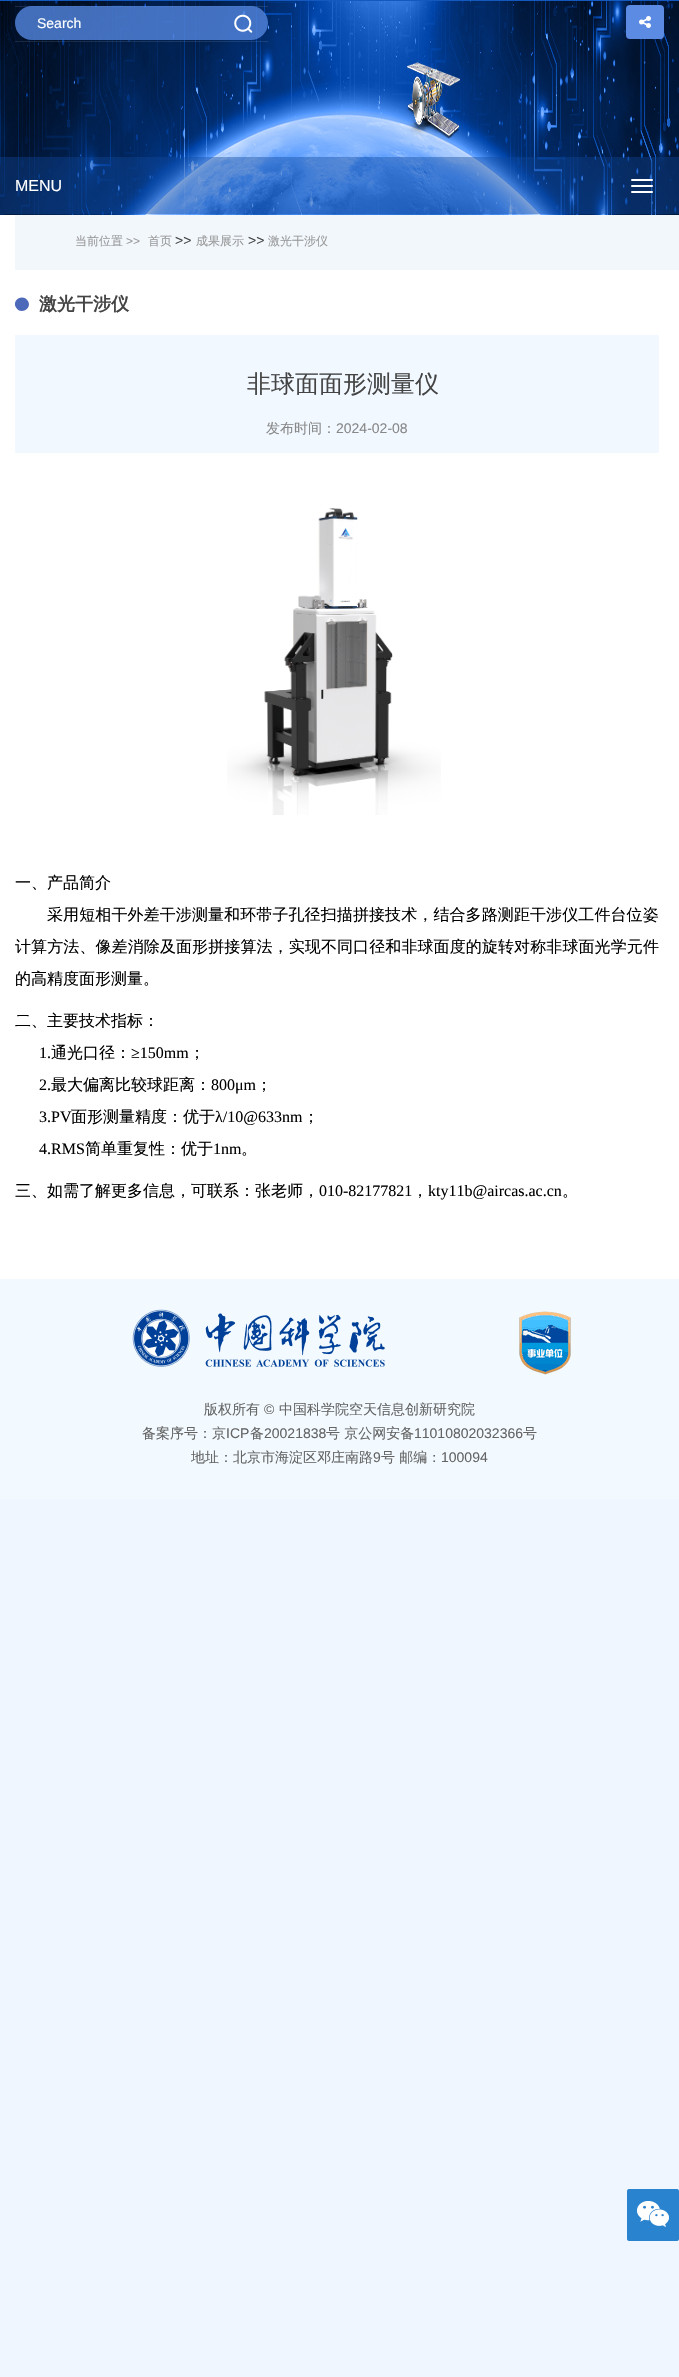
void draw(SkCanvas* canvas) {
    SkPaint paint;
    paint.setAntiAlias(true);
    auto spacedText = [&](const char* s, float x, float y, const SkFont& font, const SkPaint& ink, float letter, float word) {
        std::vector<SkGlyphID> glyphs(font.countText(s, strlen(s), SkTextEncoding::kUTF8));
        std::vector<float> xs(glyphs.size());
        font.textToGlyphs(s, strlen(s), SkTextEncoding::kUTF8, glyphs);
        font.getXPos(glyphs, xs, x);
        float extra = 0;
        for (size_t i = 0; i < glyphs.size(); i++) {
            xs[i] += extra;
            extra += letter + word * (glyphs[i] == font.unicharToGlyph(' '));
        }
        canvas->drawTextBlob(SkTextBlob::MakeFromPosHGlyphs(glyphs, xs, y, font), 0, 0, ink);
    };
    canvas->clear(0xFFEFF6FF);
    canvas->drawImageRect(SkImages::DeferredFromEncodedData(SkData::MakeFromFileName("img1.png")), SkRect::MakeXYWH(0, 0, 679, 215), SkSamplingOptions());
    paint.setColor(0x1AFFFFFF);
    canvas->drawRect(SkRect::MakeXYWH(15, 41, 253, 1), paint);
    canvas->drawRect(SkRect::MakeXYWH(15, 6, 253, 1), paint);
    paint.setColor(0xCC5284DD);
    canvas->drawRoundRect(SkRect::MakeXYWH(15, 6, 253, 34), 17, 17, paint);
    SkFont font1(fontMgr->matchFamilyStyle("Liberation Sans", SkFontStyle::Normal()), 14);
    font1.setSubpixel(true);
    paint.setColor(0xFFFFFFFF);
    canvas->drawString("Search", 37, 28, font1, paint);
    canvas->drawImageRect(SkImages::DeferredFromEncodedData(SkData::MakeFromFileName("img2.png")), SkRect::MakeXYWH(234, 14, 19, 19), SkSamplingOptions());
    paint.setColor(0xFF5C8BE3);
    canvas->drawRoundRect(SkRect::MakeXYWH(626, 5, 38, 34), 4, 4, paint);
    canvas->drawImageRect(SkImages::DeferredFromEncodedData(SkData::MakeFromFileName("img3.png")), SkRect::MakeXYWH(639, 16, 12, 12), SkSamplingOptions());
    paint.setColor(0x660E4698);
    canvas->drawRect(SkRect::MakeXYWH(0, 157, 679, 57), paint);
    SkFont font2(fontMgr->matchFamilyStyle("Liberation Sans", SkFontStyle::Normal()), 16);
    font2.setSubpixel(true);
    paint.setColor(0xFFFFFFFF);
    canvas->drawString("MENU", 15, 191, font2, paint);
    canvas->drawRoundRect(SkRect::MakeXYWH(631, 179, 22, 2), 1, 1, paint);
    canvas->drawRoundRect(SkRect::MakeXYWH(631, 185, 22, 2), 1, 1, paint);
    canvas->drawRoundRect(SkRect::MakeXYWH(631, 191, 22, 2), 1, 1, paint);
    canvas->drawRect(SkRect::MakeXYWH(0, 215, 679, 1064), paint);
    paint.setColor(0xFFF2F7FC);
    canvas->drawRect(SkRect::MakeXYWH(15, 215, 664, 55), paint);
    SkFont font3(fontMgr->matchFamilyStyle("WenQuanYi Zen Hei", SkFontStyle(500, SkFontStyle::kNormal_Width, SkFontStyle::kUpright_Slant)), 12);
    font3.setSubpixel(true);
    paint.setColor(0xFF999999);
    canvas->drawString("当前位置", 75, 245, font3, paint);
    SkFont font4(fontMgr->matchFamilyStyle("Liberation Sans", SkFontStyle::Normal()), 12);
    font4.setSubpixel(true);
    canvas->drawString(">>", 126, 245, font4, paint);
    canvas->drawString("首页", 148, 245, font3, paint);
    paint.setColor(0xFF444444);
    canvas->drawString(">>", 175, 245, font1, paint);
    paint.setColor(0xFF999999);
    canvas->drawString("成果展示", 196, 245, font3, paint);
    paint.setColor(0xFF444444);
    canvas->drawString(">>", 248, 245, font1, paint);
    paint.setColor(0xFF999999);
    canvas->drawString("激光干涉仪", 268, 245, font3, paint);
    paint.setColor(0xFF4C69BA);
    canvas->drawPath(SkPathBuilder().moveTo(28, 301).cubicTo(32.5f, 308.5f, 20.5f, 315.5f, 16, 307.5f).cubicTo(11.5f, 300, 23, 293, 28, 301).close().detach(), paint);
    SkFont font5(fontMgr->matchFamilyStyle("WenQuanYi Zen Hei", SkFontStyle::Bold()), 18);
    font5.setSubpixel(true);
    paint.setColor(0xFF444444);
    canvas->drawString("激光干涉仪", 39, 310, font5, paint);
    paint.setColor(0xFFF2F8FF);
    canvas->drawRect(SkRect::MakeXYWH(15, 335, 644, 118), paint);
    SkFont font6(fontMgr->matchFamilyStyle("WenQuanYi Zen Hei", SkFontStyle(500, SkFontStyle::kNormal_Width, SkFontStyle::kUpright_Slant)), 24);
    font6.setSubpixel(true);
    paint.setColor(0xFF444444);
    canvas->drawString("非球面面形测量仪", 247, 392, font6, paint);
    SkFont font7(fontMgr->matchFamilyStyle("WenQuanYi Zen Hei", SkFontStyle(500, SkFontStyle::kNormal_Width, SkFontStyle::kUpright_Slant)), 14);
    font7.setSubpixel(true);
    paint.setColor(0xFF888888);
    canvas->drawString("发布时间：", 266, 433, font7, paint);
    canvas->drawString("2024-02-08", 336, 433, font1, paint);
    canvas->drawImageRect(SkImages::DeferredFromEncodedData(SkData::MakeFromFileName("img4.png")), SkRect::MakeXYWH(227, 508, 214, 307), SkSamplingOptions());
    SkFont font8(fontMgr->matchFamilyStyle("WenQuanYi Zen Hei", SkFontStyle(500, SkFontStyle::kNormal_Width, SkFontStyle::kUpright_Slant)), 16);
    font8.setSubpixel(true);
    paint.setColor(0xFF000000);
    canvas->drawString("一、产品简介", 15, 888, font8, paint);
    spacedText("采用短相干外差干涉测量和环带子孔径扫描拼接技术，结合多路测距干涉仪工件台位姿", 47, 920, font8, paint, 0.1f, 0);
    spacedText("计算方法、像差消除及面形拼接算法，实现不同口径和非球面度的旋转对称非球面光学元件", 15, 952, font8, paint, 0.1f, 0);
    canvas->drawString("的高精度面形测量。", 15, 984, font8, paint);
    canvas->drawString("二、主要技术指标：", 15, 1026, font8, paint);
    SkFont font9(fontMgr->matchFamilyStyle("Liberation Serif", SkFontStyle::Normal()), 16);
    font9.setSubpixel(true);
    canvas->drawString("1.", 39, 1058, font9, paint);
    canvas->drawString("通光口径：", 51, 1058, font8, paint);
    canvas->drawString("≥150mm", 131, 1058, font9, paint);
    canvas->drawString("；", 189, 1058, font8, paint);
    canvas->drawString("2.", 39, 1090, font9, paint);
    canvas->drawString("最大偏离比较球距离：", 51, 1090, font8, paint);
    canvas->drawString("800μm", 211, 1090, font9, paint);
    canvas->drawString("；", 256, 1090, font8, paint);
    canvas->drawString("3.PV", 39, 1122, font9, paint);
    canvas->drawString("面形测量精度：优于", 71, 1122, font8, paint);
    canvas->drawString("λ/10@633nm", 215, 1122, font9, paint);
    canvas->drawString("；", 303, 1122, font8, paint);
    canvas->drawString("4.RMS", 39, 1154, font9, paint);
    canvas->drawString("简单重复性：优于", 85, 1154, font8, paint);
    canvas->drawString("1nm", 213, 1154, font9, paint);
    canvas->drawString("。", 241, 1154, font8, paint);
    canvas->drawString("三、如需了解更多信息，可联系：张老师，", 15, 1196, font8, paint);
    canvas->drawString("010-82177821", 319, 1196, font9, paint);
    canvas->drawString("，", 412, 1196, font8, paint);
    canvas->drawString("kty11b@aircas.ac.cn", 428, 1196, font9, paint);
    canvas->drawString("。", 562, 1196, font8, paint);
    paint.setColor(0xFFF3FAFF);
    canvas->drawRect(SkRect::MakeXYWH(0, 1279, 679, 220), paint);
    canvas->drawImageRect(SkImages::DeferredFromEncodedData(SkData::MakeFromFileName("img5.png")), SkRect::MakeXYWH(132, 1309, 253, 58), SkSamplingOptions());
    canvas->drawImageRect(SkImages::DeferredFromEncodedData(SkData::MakeFromFileName("img6.png")), SkRect::MakeXYWH(519, 1311, 52, 64), SkSamplingOptions());
    paint.setColor(0xFF646464);
    canvas->drawString("版权所有", 204, 1414, font7, paint);
    canvas->drawString("©", 264, 1414, font1, paint);
    canvas->drawString("中国科学院空天信息创新研究院", 279, 1414, font7, paint);
    canvas->drawString("备案序号：京", 142, 1438, font7, paint);
    canvas->drawString("ICP", 226, 1438, font1, paint);
    canvas->drawString("备", 250, 1438, font7, paint);
    canvas->drawString("20021838", 264, 1438, font1, paint);
    canvas->drawString("号 京公网安备", 326, 1438, font7, paint);
    canvas->drawString("11010802032366", 414, 1438, font1, paint);
    canvas->drawString("号", 523, 1438, font7, paint);
    canvas->drawString("地址：北京市海淀区邓庄南路", 191, 1462, font7, paint);
    canvas->drawString("9", 373, 1462, font1, paint);
    canvas->drawString("号 邮编：", 381, 1462, font7, paint);
    canvas->drawString("100094", 441, 1462, font1, paint);
    canvas->drawImageRect(SkImages::DeferredFromEncodedData(SkData::MakeFromFileName("img7.png")), SkRect::MakeXYWH(627, 2189, 52, 52), SkSamplingOptions());
}
